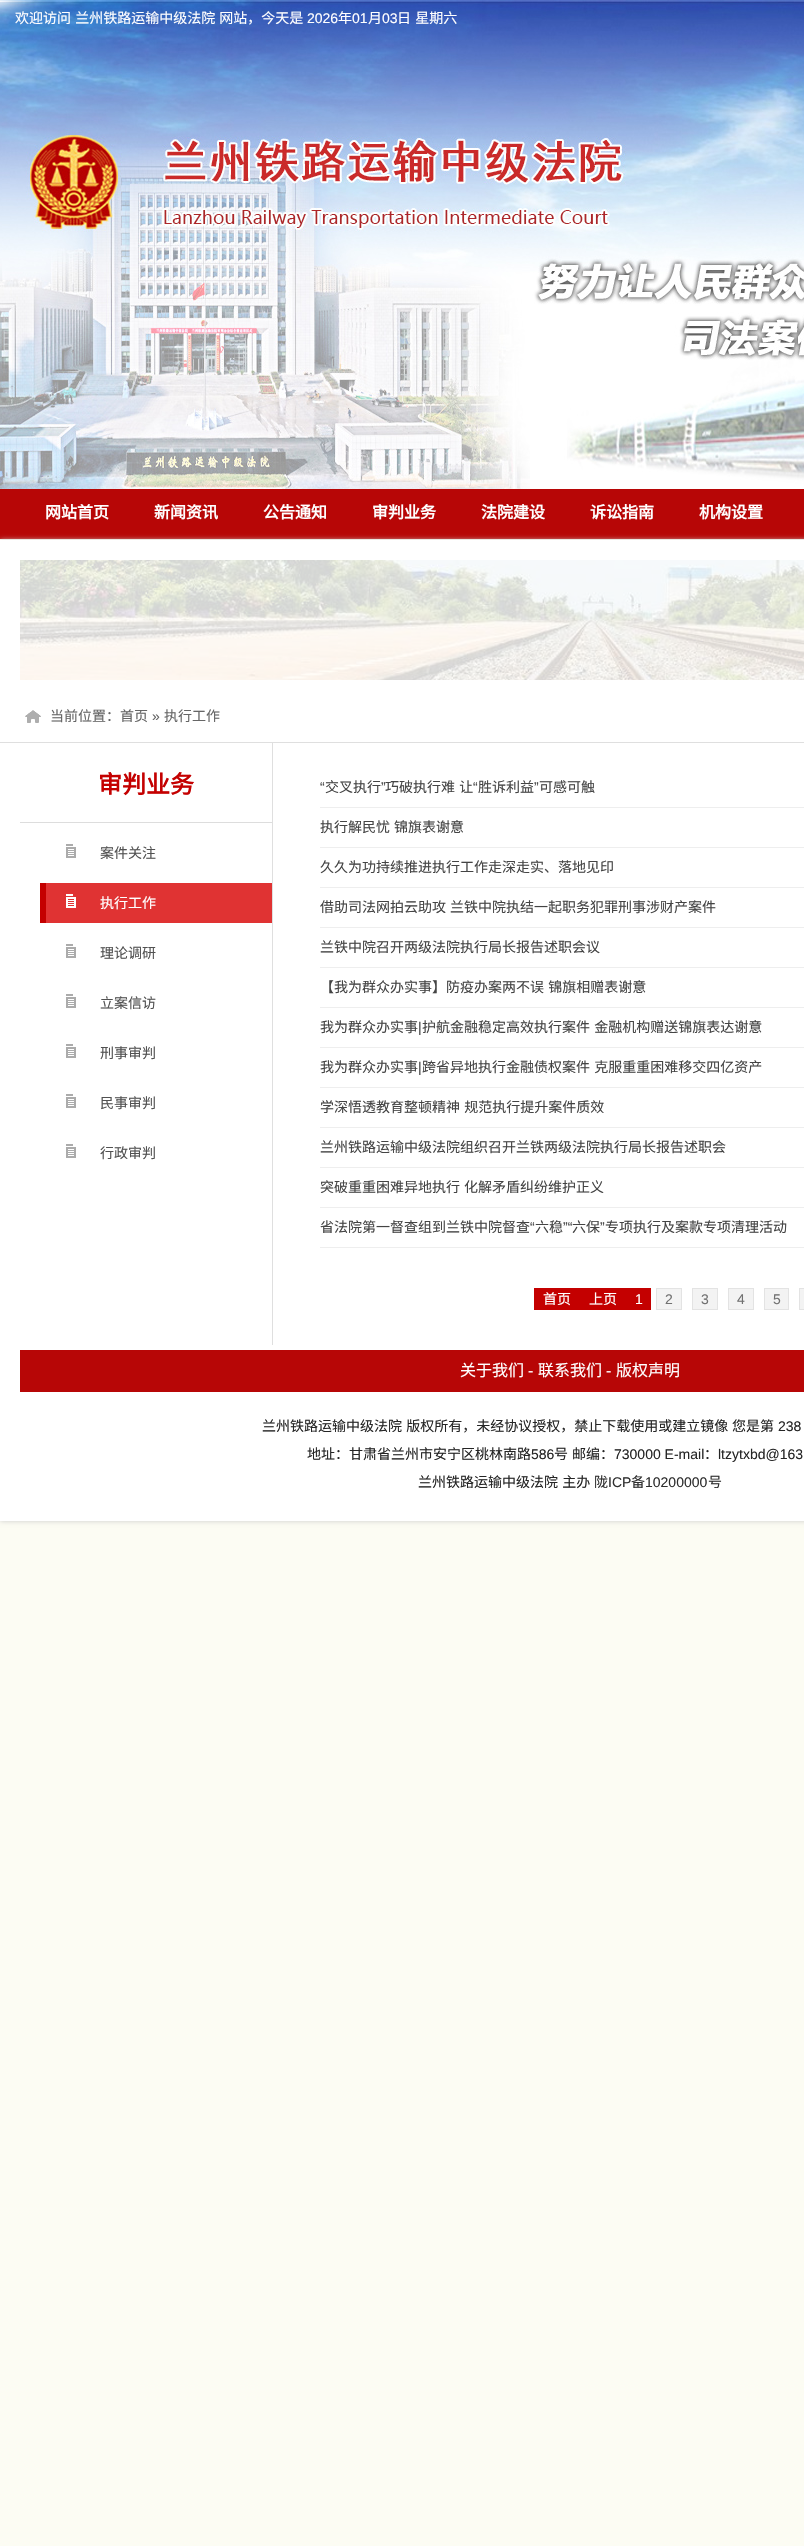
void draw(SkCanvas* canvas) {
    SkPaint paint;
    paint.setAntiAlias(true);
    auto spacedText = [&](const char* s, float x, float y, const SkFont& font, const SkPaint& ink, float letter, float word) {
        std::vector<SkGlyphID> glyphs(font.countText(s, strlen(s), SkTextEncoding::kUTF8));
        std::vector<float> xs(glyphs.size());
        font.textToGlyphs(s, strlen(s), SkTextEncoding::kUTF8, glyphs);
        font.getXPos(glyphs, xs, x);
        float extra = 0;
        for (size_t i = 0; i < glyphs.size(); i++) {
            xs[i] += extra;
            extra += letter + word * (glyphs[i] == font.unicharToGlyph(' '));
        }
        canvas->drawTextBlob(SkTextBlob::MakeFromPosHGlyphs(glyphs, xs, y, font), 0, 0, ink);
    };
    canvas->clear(0xFFFCFCF3);
    canvas->drawImageRect(SkImages::DeferredFromEncodedData(SkData::MakeFromFileName("img1.png")), SkRect::MakeXYWH(0, 0, 804, 489), SkSamplingOptions());
    SkFont font1(fontMgr->matchFamilyStyle("Noto Sans CJK SC", SkFontStyle::Normal()), 14);
    font1.setSubpixel(true);
    paint.setColor(0xFFFFFFFF);
    spacedText("欢迎访问 兰州铁路运输中级法院 网站，今天是", 15, 23, font1, paint, 0, 1);
    SkFont font2(fontMgr->matchFamilyStyle("Liberation Sans", SkFontStyle::Normal()), 14);
    font2.setSubpixel(true);
    canvas->drawString("2026", 307, 23, font2, paint);
    canvas->drawString("年", 338, 23, font1, paint);
    canvas->drawString("01", 352, 23, font2, paint);
    canvas->drawString("月", 368, 23, font1, paint);
    canvas->drawString("03", 382, 23, font2, paint);
    spacedText("日 星期六", 397, 23, font1, paint, 0, 1);
    paint.setColor(0xFFB70606);
    canvas->drawRect(SkRect::MakeXYWH(0, 489, 804, 50), paint);
    SkFont font3(fontMgr->matchFamilyStyle("Noto Sans CJK SC", SkFontStyle::Bold()), 16);
    font3.setSubpixel(true);
    paint.setColor(0xFFFFFFFF);
    canvas->drawString("网站首页", 45, 518, font3, paint);
    canvas->drawString("新闻资讯", 154, 518, font3, paint);
    canvas->drawString("公告通知", 263, 518, font3, paint);
    canvas->drawString("审判业务", 372, 518, font3, paint);
    canvas->drawString("法院建设", 481, 518, font3, paint);
    canvas->drawString("诉讼指南", 590, 518, font3, paint);
    canvas->drawString("机构设置", 699, 518, font3, paint);
    paint.setColor(0xFFCCCCCC);
    paint.setMaskFilter(SkMaskFilter::MakeBlur(kNormal_SkBlurStyle, 2.5f));
    canvas->drawRect(SkRect::MakeXYWH(0, 540, 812, 981), paint);
    paint.setMaskFilter(nullptr);
    paint.setColor(0xFFFFFFFF);
    canvas->drawRect(SkRect::MakeXYWH(0, 540, 804, 981), paint);
    canvas->drawImageRect(SkImages::DeferredFromEncodedData(SkData::MakeFromFileName("img2.png")), SkRect::MakeXYWH(20, 560, 784, 120), SkSamplingOptions());
    canvas->drawImageRect(SkImages::DeferredFromEncodedData(SkData::MakeFromFileName("img3.png")), SkRect::MakeXYWH(25, 710, 16, 13), SkSamplingOptions());
    paint.setColor(0xFF666666);
    canvas->drawString("当前位置：首页", 50, 721, font1, paint);
    canvas->drawString("»", 152, 721, font2, paint);
    canvas->drawString("执行工作", 164, 721, font1, paint);
    paint.setColor(0xFFDFDFDF);
    canvas->drawRect(SkRect::MakeXYWH(272, 742, 1, 603), paint);
    canvas->drawRect(SkRect::MakeXYWH(0, 742, 804, 1), paint);
    paint.setColor(0xFFDDDDDD);
    canvas->drawRect(SkRect::MakeXYWH(20, 822, 252, 1), paint);
    SkFont font4(fontMgr->matchFamilyStyle("Noto Sans CJK SC", SkFontStyle::Bold()), 24);
    font4.setSubpixel(true);
    paint.setColor(0xFFC40000);
    canvas->drawString("审判业务", 98, 793, font4, paint);
    canvas->drawImageRect(SkImages::DeferredFromEncodedData(SkData::MakeFromFileName("img4.png")), SkRect::MakeXYWH(66, 844, 10, 14), SkSamplingOptions());
    paint.setColor(0xFF515151);
    canvas->drawString("案件关注", 100, 858, font1, paint);
    paint.setColor(0xFFE03333);
    canvas->drawRect(SkRect::MakeXYWH(46, 883, 226, 40), paint);
    canvas->drawImageRect(SkImages::DeferredFromEncodedData(SkData::MakeFromFileName("img5.png")), SkRect::MakeXYWH(66, 894, 10, 14), SkSamplingOptions());
    paint.setColor(0xFFC40000);
    canvas->drawRect(SkRect::MakeXYWH(40, 883, 6, 40), paint);
    paint.setColor(0xFFFFFFFF);
    canvas->drawString("执行工作", 100, 908, font1, paint);
    canvas->drawImageRect(SkImages::DeferredFromEncodedData(SkData::MakeFromFileName("img4.png")), SkRect::MakeXYWH(66, 944, 10, 14), SkSamplingOptions());
    paint.setColor(0xFF515151);
    canvas->drawString("理论调研", 100, 958, font1, paint);
    canvas->drawImageRect(SkImages::DeferredFromEncodedData(SkData::MakeFromFileName("img4.png")), SkRect::MakeXYWH(66, 994, 10, 14), SkSamplingOptions());
    canvas->drawString("立案信访", 100, 1008, font1, paint);
    canvas->drawImageRect(SkImages::DeferredFromEncodedData(SkData::MakeFromFileName("img4.png")), SkRect::MakeXYWH(66, 1044, 10, 14), SkSamplingOptions());
    canvas->drawString("刑事审判", 100, 1058, font1, paint);
    canvas->drawImageRect(SkImages::DeferredFromEncodedData(SkData::MakeFromFileName("img4.png")), SkRect::MakeXYWH(66, 1094, 10, 14), SkSamplingOptions());
    canvas->drawString("民事审判", 100, 1108, font1, paint);
    canvas->drawImageRect(SkImages::DeferredFromEncodedData(SkData::MakeFromFileName("img4.png")), SkRect::MakeXYWH(66, 1144, 10, 14), SkSamplingOptions());
    canvas->drawString("行政审判", 100, 1158, font1, paint);
    paint.setColor(0xFFEEEEEE);
    canvas->drawRect(SkRect::MakeXYWH(320, 807, 484, 1), paint);
    paint.setColor(0xFF444444);
    canvas->drawString("“", 320, 792, font2, paint);
    canvas->drawString("交叉执行", 325, 792, font1, paint);
    canvas->drawString("”", 381, 792, font2, paint);
    spacedText("巧破执行难 让", 385, 792, font1, paint, 0, 1);
    canvas->drawString("“", 473, 792, font2, paint);
    canvas->drawString("胜诉利益", 478, 792, font1, paint);
    canvas->drawString("”", 534, 792, font2, paint);
    canvas->drawString("可感可触", 539, 792, font1, paint);
    paint.setColor(0xFFEEEEEE);
    canvas->drawRect(SkRect::MakeXYWH(320, 847, 484, 1), paint);
    paint.setColor(0xFF444444);
    canvas->drawString("执行解民忧", 320, 832, font1, paint);
    canvas->drawString("锦旗表谢意", 394, 832, font1, paint);
    paint.setColor(0xFFEEEEEE);
    canvas->drawRect(SkRect::MakeXYWH(320, 887, 484, 1), paint);
    paint.setColor(0xFF444444);
    canvas->drawString("久久为功持续推进执行工作走深走实、落地见印", 320, 872, font1, paint);
    paint.setColor(0xFFEEEEEE);
    canvas->drawRect(SkRect::MakeXYWH(320, 927, 484, 1), paint);
    paint.setColor(0xFF444444);
    canvas->drawString("借助司法网拍云助攻", 320, 912, font1, paint);
    canvas->drawString("兰铁中院执结一起职务犯罪刑事涉财产案件", 450, 912, font1, paint);
    paint.setColor(0xFFEEEEEE);
    canvas->drawRect(SkRect::MakeXYWH(320, 967, 484, 1), paint);
    paint.setColor(0xFF444444);
    canvas->drawString("兰铁中院召开两级法院执行局长报告述职会议", 320, 952, font1, paint);
    paint.setColor(0xFFEEEEEE);
    canvas->drawRect(SkRect::MakeXYWH(320, 1007, 484, 1), paint);
    paint.setColor(0xFF444444);
    spacedText("【我为群众办实事】防疫办案两不误 锦旗相赠表谢意", 320, 992, font1, paint, 0, 1);
    paint.setColor(0xFFEEEEEE);
    canvas->drawRect(SkRect::MakeXYWH(320, 1047, 484, 1), paint);
    paint.setColor(0xFF444444);
    canvas->drawString("我为群众办实事", 320, 1032, font1, paint);
    canvas->drawString("|", 418, 1032, font2, paint);
    spacedText("护航金融稳定高效执行案件 金融机构赠送锦旗表达谢意", 422, 1032, font1, paint, 0, 1);
    paint.setColor(0xFFEEEEEE);
    canvas->drawRect(SkRect::MakeXYWH(320, 1087, 484, 1), paint);
    paint.setColor(0xFF444444);
    canvas->drawString("我为群众办实事", 320, 1072, font1, paint);
    canvas->drawString("|", 418, 1072, font2, paint);
    spacedText("跨省异地执行金融债权案件 克服重重困难移交四亿资产", 422, 1072, font1, paint, 0, 1);
    paint.setColor(0xFFEEEEEE);
    canvas->drawRect(SkRect::MakeXYWH(320, 1127, 484, 1), paint);
    paint.setColor(0xFF444444);
    spacedText("学深悟透教育整顿精神 规范执行提升案件质效", 320, 1112, font1, paint, 0, 1);
    paint.setColor(0xFFEEEEEE);
    canvas->drawRect(SkRect::MakeXYWH(320, 1167, 484, 1), paint);
    paint.setColor(0xFF444444);
    canvas->drawString("兰州铁路运输中级法院组织召开兰铁两级法院执行局长报告述职会", 320, 1152, font1, paint);
    paint.setColor(0xFFEEEEEE);
    canvas->drawRect(SkRect::MakeXYWH(320, 1207, 484, 1), paint);
    paint.setColor(0xFF444444);
    canvas->drawString("突破重重困难异地执行", 320, 1192, font1, paint);
    canvas->drawString("化解矛盾纠纷维护正义", 464, 1192, font1, paint);
    paint.setColor(0xFFEEEEEE);
    canvas->drawRect(SkRect::MakeXYWH(320, 1247, 484, 1), paint);
    paint.setColor(0xFF444444);
    canvas->drawString("省法院第一督查组到兰铁中院督查", 320, 1232, font1, paint);
    canvas->drawString("“", 530, 1232, font2, paint);
    canvas->drawString("六稳", 535, 1232, font1, paint);
    canvas->drawString("”“", 563, 1232, font2, paint);
    canvas->drawString("六保", 572, 1232, font1, paint);
    canvas->drawString("”", 600, 1232, font2, paint);
    canvas->drawString("专项执行及案款专项清理活动", 605, 1232, font1, paint);
    paint.setColor(0xFFC40000);
    canvas->drawRect(SkRect::MakeXYWH(534, 1288, 117, 22), paint);
    paint.setColor(0xFFFFFFFF);
    canvas->drawString("首页", 543, 1304, font1, paint);
    canvas->drawString("上页", 589, 1304, font1, paint);
    canvas->drawString("1", 635, 1304, font2, paint);
    paint.setColor(0xFFF3F3F3);
    canvas->drawRect(SkRect::MakeXYWH(656.5f, 1288.5f, 25, 21), paint);
    paint.setStyle(SkPaint::kStroke_Style);
    paint.setStrokeWidth(1);
    paint.setColor(0xFFE3E3E3);
    canvas->drawRect(SkRect::MakeXYWH(656.5f, 1288.5f, 25, 21), paint);
    paint.setStyle(SkPaint::kFill_Style);
    paint.setColor(0xFF717171);
    canvas->drawString("2", 665, 1304, font2, paint);
    paint.setColor(0xFFF3F3F3);
    canvas->drawRect(SkRect::MakeXYWH(692.5f, 1288.5f, 25, 21), paint);
    paint.setStyle(SkPaint::kStroke_Style);
    paint.setColor(0xFFE3E3E3);
    canvas->drawRect(SkRect::MakeXYWH(692.5f, 1288.5f, 25, 21), paint);
    paint.setStyle(SkPaint::kFill_Style);
    paint.setColor(0xFF717171);
    canvas->drawString("3", 701, 1304, font2, paint);
    paint.setColor(0xFFF3F3F3);
    canvas->drawRect(SkRect::MakeXYWH(728.5f, 1288.5f, 25, 21), paint);
    paint.setStyle(SkPaint::kStroke_Style);
    paint.setColor(0xFFE3E3E3);
    canvas->drawRect(SkRect::MakeXYWH(728.5f, 1288.5f, 25, 21), paint);
    paint.setStyle(SkPaint::kFill_Style);
    paint.setColor(0xFF717171);
    canvas->drawString("4", 737, 1304, font2, paint);
    paint.setColor(0xFFF3F3F3);
    canvas->drawRect(SkRect::MakeXYWH(764.5f, 1288.5f, 24, 21), paint);
    paint.setStyle(SkPaint::kStroke_Style);
    paint.setColor(0xFFE3E3E3);
    canvas->drawRect(SkRect::MakeXYWH(764.5f, 1288.5f, 24, 21), paint);
    paint.setStyle(SkPaint::kFill_Style);
    paint.setColor(0xFF717171);
    canvas->drawString("5", 773, 1304, font2, paint);
    paint.setColor(0xFFF3F3F3);
    canvas->drawRect(SkRect::MakeXYWH(799.5f, 1288.5f, 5, 21), paint);
    paint.setStyle(SkPaint::kStroke_Style);
    paint.setColor(0xFFE3E3E3);
    canvas->drawRect(SkRect::MakeXYWH(799.5f, 1288.5f, 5, 21), paint);
    paint.setStyle(SkPaint::kFill_Style);
    paint.setColor(0xFFB70606);
    canvas->drawRect(SkRect::MakeXYWH(20, 1350, 784, 42), paint);
    SkFont font5(fontMgr->matchFamilyStyle("Noto Sans CJK SC", SkFontStyle::Normal()), 16);
    font5.setSubpixel(true);
    paint.setColor(0xFFFFFFFF);
    canvas->drawString("关于我们", 460, 1376, font5, paint);
    SkFont font6(fontMgr->matchFamilyStyle("Liberation Sans", SkFontStyle::Normal()), 16);
    font6.setSubpixel(true);
    canvas->drawString("-", 528, 1376, font6, paint);
    canvas->drawString("联系我们", 538, 1376, font5, paint);
    canvas->drawString("-", 606, 1376, font6, paint);
    canvas->drawString("版权声明", 616, 1376, font5, paint);
    paint.setColor(0xFF252525);
    spacedText("兰州铁路运输中级法院 版权所有，未经协议授权，禁止下载使用或建立镜像", 262, 1431, font1, paint, 0, 1);
    canvas->drawString("您是第", 732, 1431, font1, paint);
    canvas->drawString("238", 778, 1431, font2, paint);
    canvas->drawString("地址：甘肃省兰州市安宁区桃林南路", 307, 1459, font1, paint);
    canvas->drawString("586", 531, 1459, font2, paint);
    canvas->drawString("号", 554, 1459, font1, paint);
    canvas->drawString("邮编：", 572, 1459, font1, paint);
    canvas->drawString("730000 E-mail", 614, 1459, font2, paint);
    canvas->drawString("：", 704, 1459, font1, paint);
    canvas->drawString("ltzytxbd@163", 718, 1459, font2, paint);
    spacedText("兰州铁路运输中级法院 主办", 418, 1487, font1, paint, 0, 1);
    paint.setColor(0xFF2F2F2F);
    canvas->drawString("陇", 594, 1487, font1, paint);
    canvas->drawString("ICP", 608, 1487, font2, paint);
    canvas->drawString("备", 631, 1487, font1, paint);
    canvas->drawString("10200000", 645, 1487, font2, paint);
    canvas->drawString("号", 708, 1487, font1, paint);
}
